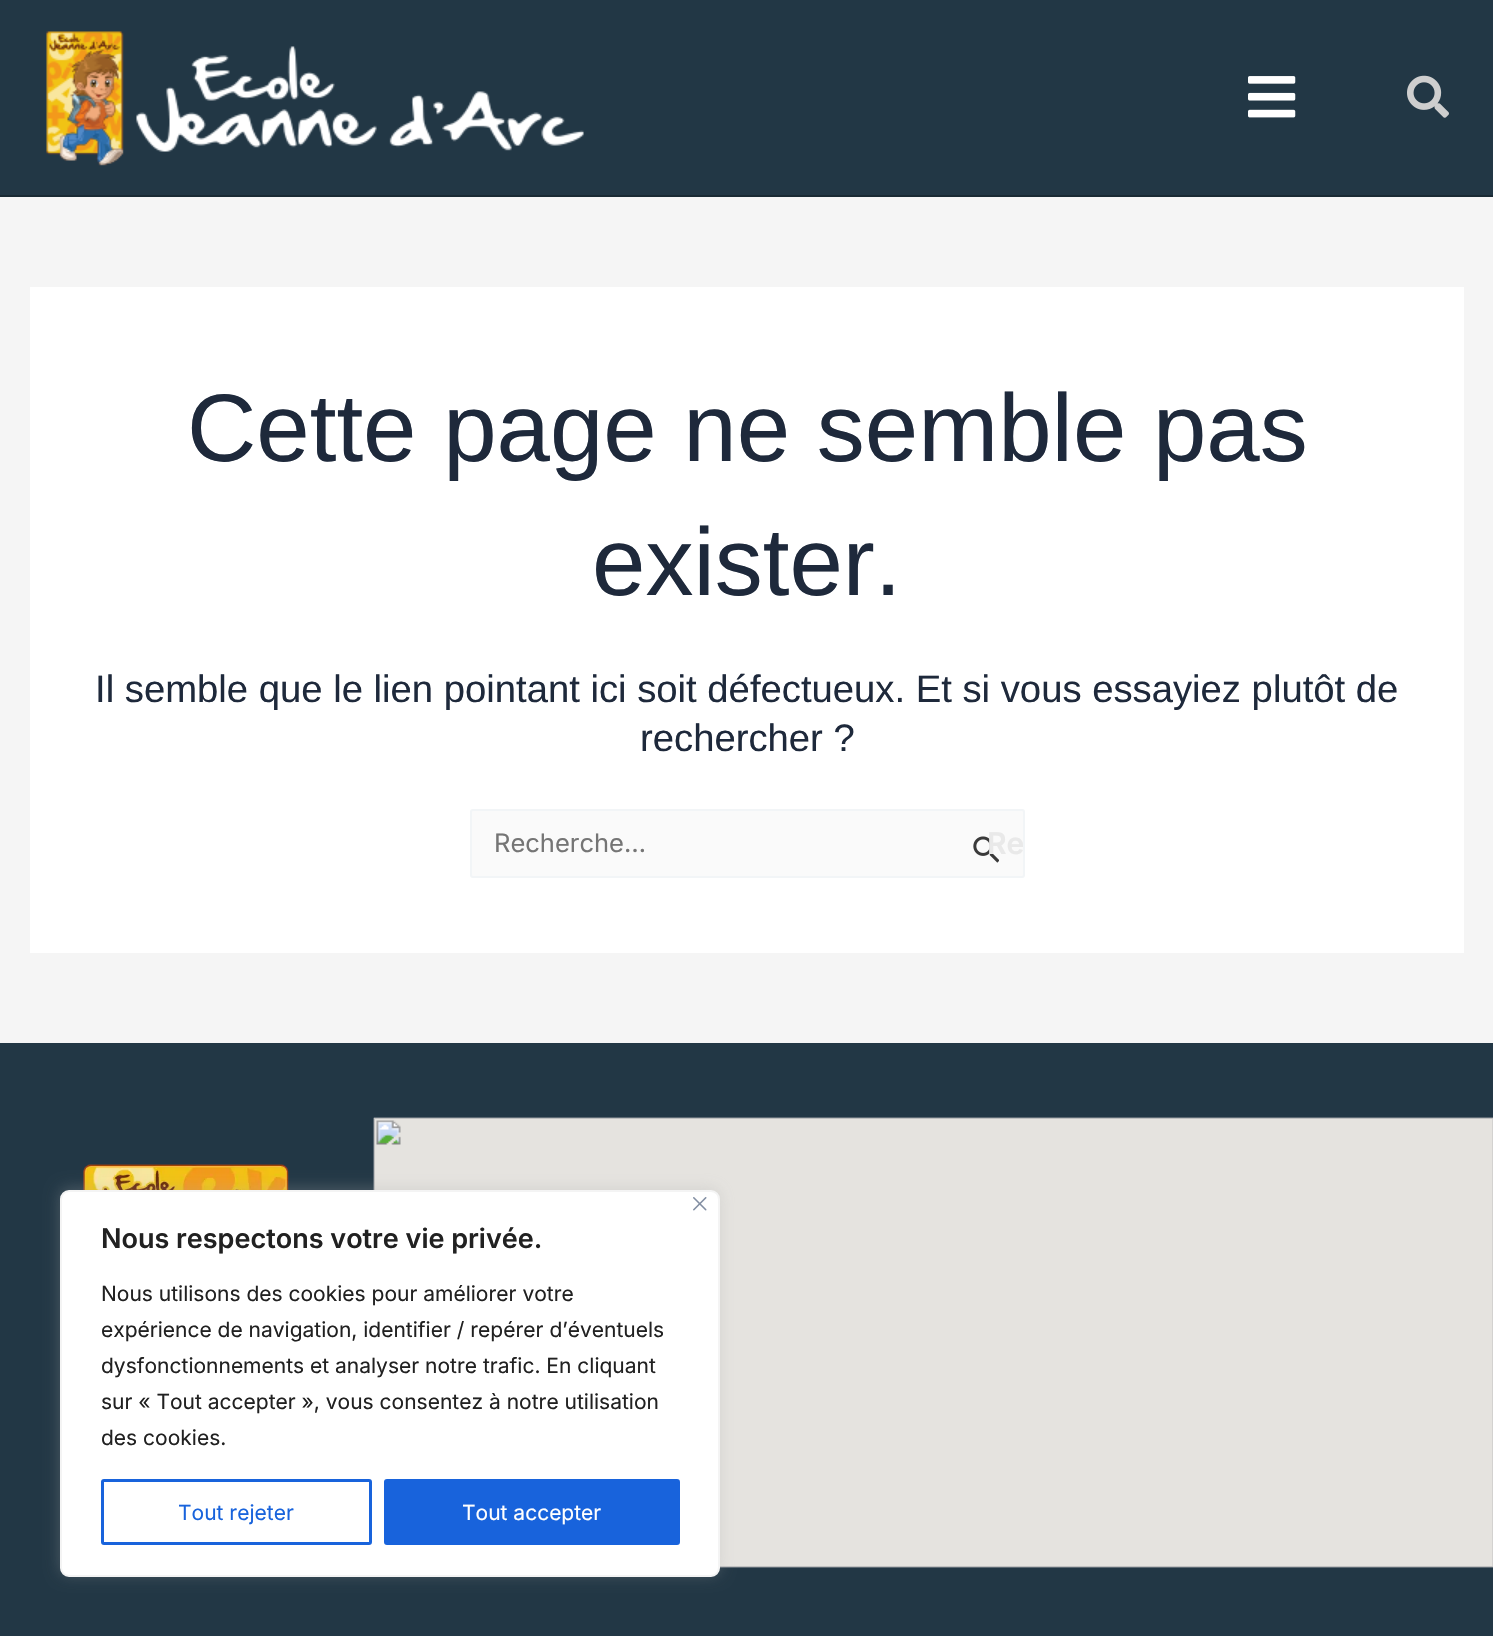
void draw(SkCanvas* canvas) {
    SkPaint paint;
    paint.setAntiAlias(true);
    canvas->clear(0xFFF5F5F5);
    paint.setColor(0xFF223745);
    canvas->drawRect(SkRect::MakeXYWH(0, 0, 1493, 195), paint);
    paint.setColor(0xFF1A2A34);
    canvas->drawRect(SkRect::MakeXYWH(0, 195, 1493, 2), paint);
    canvas->drawImageRect(SkImages::DeferredFromEncodedData(SkData::MakeFromFileName("img1.png")), SkRect::MakeXYWH(46, 31, 538, 135), SkSamplingOptions());
    canvas->drawImageRect(SkImages::DeferredFromEncodedData(SkData::MakeFromFileName("img2.png")), SkRect::MakeXYWH(1248, 76, 48, 42), SkSamplingOptions());
    canvas->drawImageRect(SkImages::DeferredFromEncodedData(SkData::MakeFromFileName("img3.png")), SkRect::MakeXYWH(1407, 75, 42, 43), SkSamplingOptions());
    paint.setColor(0xFFFFFFFF);
    canvas->drawRect(SkRect::MakeXYWH(30, 287, 1434, 666), paint);
    SkFont font1(fontMgr->matchFamilyStyle("Liberation Sans", SkFontStyle::Normal()), 96);
    font1.setSubpixel(true);
    paint.setColor(0xFF1E293B);
    canvas->drawString("Cette page ne semble pas", 187, 461, font1, paint);
    canvas->drawString("exister.", 592, 595, font1, paint);
    SkFont font2(fontMgr->matchFamilyStyle("Liberation Sans", SkFontStyle::Normal()), 38.25f);
    font2.setSubpixel(true);
    canvas->drawString("Il semble que le lien pointant ici soit défectueux. Et si vous essayiez plutôt de", 95, 702, font2, paint);
    canvas->drawString("rechercher ?", 640, 751, font2, paint);
    paint.setColor(0xFFFAFAFA);
    canvas->drawRoundRect(SkRect::MakeXYWH(471, 810, 553, 67), 2, 2, paint);
    paint.setStyle(SkPaint::kStroke_Style);
    paint.setStrokeWidth(2);
    paint.setColor(0xFFF2F5F7);
    canvas->drawRoundRect(SkRect::MakeXYWH(471, 810, 553, 67), 2, 2, paint);
    SkFont font3(fontMgr->matchFamilyStyle("Inter", SkFontStyle::Normal()), 25.5f);
    font3.setSubpixel(true);
    paint.setStyle(SkPaint::kFill_Style);
    paint.setColor(0xFF757575);
    canvas->drawString("Recherche…", 494, 852, font3, paint);
    canvas->drawImageRect(SkImages::DeferredFromEncodedData(SkData::MakeFromFileName("img4.png")), SkRect::MakeXYWH(973, 836, 26, 27), SkSamplingOptions());
    SkFont font4(fontMgr->matchFamilyStyle("Inter", SkFontStyle(600, SkFontStyle::kNormal_Width, SkFontStyle::kUpright_Slant)), 30);
    font4.setSubpixel(true);
    paint.setColor(0xFFE9E9E9);
    canvas->drawString("Re", 987, 854, font4, paint);
    paint.setColor(0xFF223745);
    canvas->drawRect(SkRect::MakeXYWH(0, 1043, 1493, 593), paint);
    canvas->drawImageRect(SkImages::DeferredFromEncodedData(SkData::MakeFromFileName("img5.png")), SkRect::MakeXYWH(83, 1164, 206, 26), SkSamplingOptions());
    canvas->drawImageRect(SkImages::DeferredFromEncodedData(SkData::MakeFromFileName("img6.png")), SkRect::MakeXYWH(373, 1117, 1120, 451), SkSamplingOptions());
    paint.setColor(0x4DACABAB);
    paint.setMaskFilter(SkMaskFilter::MakeBlur(kNormal_SkBlurStyle, 7.5f));
    canvas->drawRoundRect(SkRect::MakeXYWH(60, 1188, 660, 387), 9, 9, paint);
    paint.setMaskFilter(nullptr);
    paint.setColor(0xFFFFFFFF);
    canvas->drawRoundRect(SkRect::MakeXYWH(61, 1191, 658, 385), 8, 8, paint);
    paint.setStyle(SkPaint::kStroke_Style);
    paint.setColor(0xFFF4F4F4);
    canvas->drawRoundRect(SkRect::MakeXYWH(61, 1191, 658, 385), 8, 8, paint);
    canvas->drawImageRect(SkImages::DeferredFromEncodedData(SkData::MakeFromFileName("img7.png")), SkRect::MakeXYWH(693, 1197, 14, 14), SkSamplingOptions());
    SkFont font5(fontMgr->matchFamilyStyle("Inter", SkFontStyle(600, SkFontStyle::kNormal_Width, SkFontStyle::kUpright_Slant)), 27);
    font5.setSubpixel(true);
    paint.setStyle(SkPaint::kFill_Style);
    paint.setColor(0xFF212121);
    canvas->drawString("Nous respectons votre vie privée.", 101, 1248, font5, paint);
    SkFont font6(fontMgr->matchFamilyStyle("Inter", SkFontStyle::Normal()), 21);
    font6.setSubpixel(true);
    canvas->drawString("Nous utilisons des cookies pour améliorer votre", 101, 1301, font6, paint);
    canvas->drawString("expérience de navigation, identifier / repérer d’éventuels", 101, 1337, font6, paint);
    canvas->drawString("dysfonctionnements et analyser notre trafic. En cliquant", 101, 1373, font6, paint);
    canvas->drawString("sur « Tout accepter », vous consentez à notre utilisation", 101, 1409, font6, paint);
    canvas->drawString("des cookies.", 101, 1445, font6, paint);
    paint.setStyle(SkPaint::kStroke_Style);
    paint.setStrokeWidth(3);
    paint.setColor(0xFF1863DC);
    canvas->drawRoundRect(SkRect::MakeXYWH(102.5f, 1480.5f, 268, 63), 1.5f, 1.5f, paint);
    paint.setStyle(SkPaint::kFill_Style);
    canvas->drawString("Tout rejeter", 178, 1520, font6, paint);
    canvas->drawRoundRect(SkRect::MakeXYWH(385.5f, 1480.5f, 293, 63), 1.5f, 1.5f, paint);
    paint.setStyle(SkPaint::kStroke_Style);
    canvas->drawRoundRect(SkRect::MakeXYWH(385.5f, 1480.5f, 293, 63), 1.5f, 1.5f, paint);
    paint.setStyle(SkPaint::kFill_Style);
    paint.setColor(0xFFFFFFFF);
    canvas->drawString("Tout accepter", 462, 1520, font6, paint);
}
